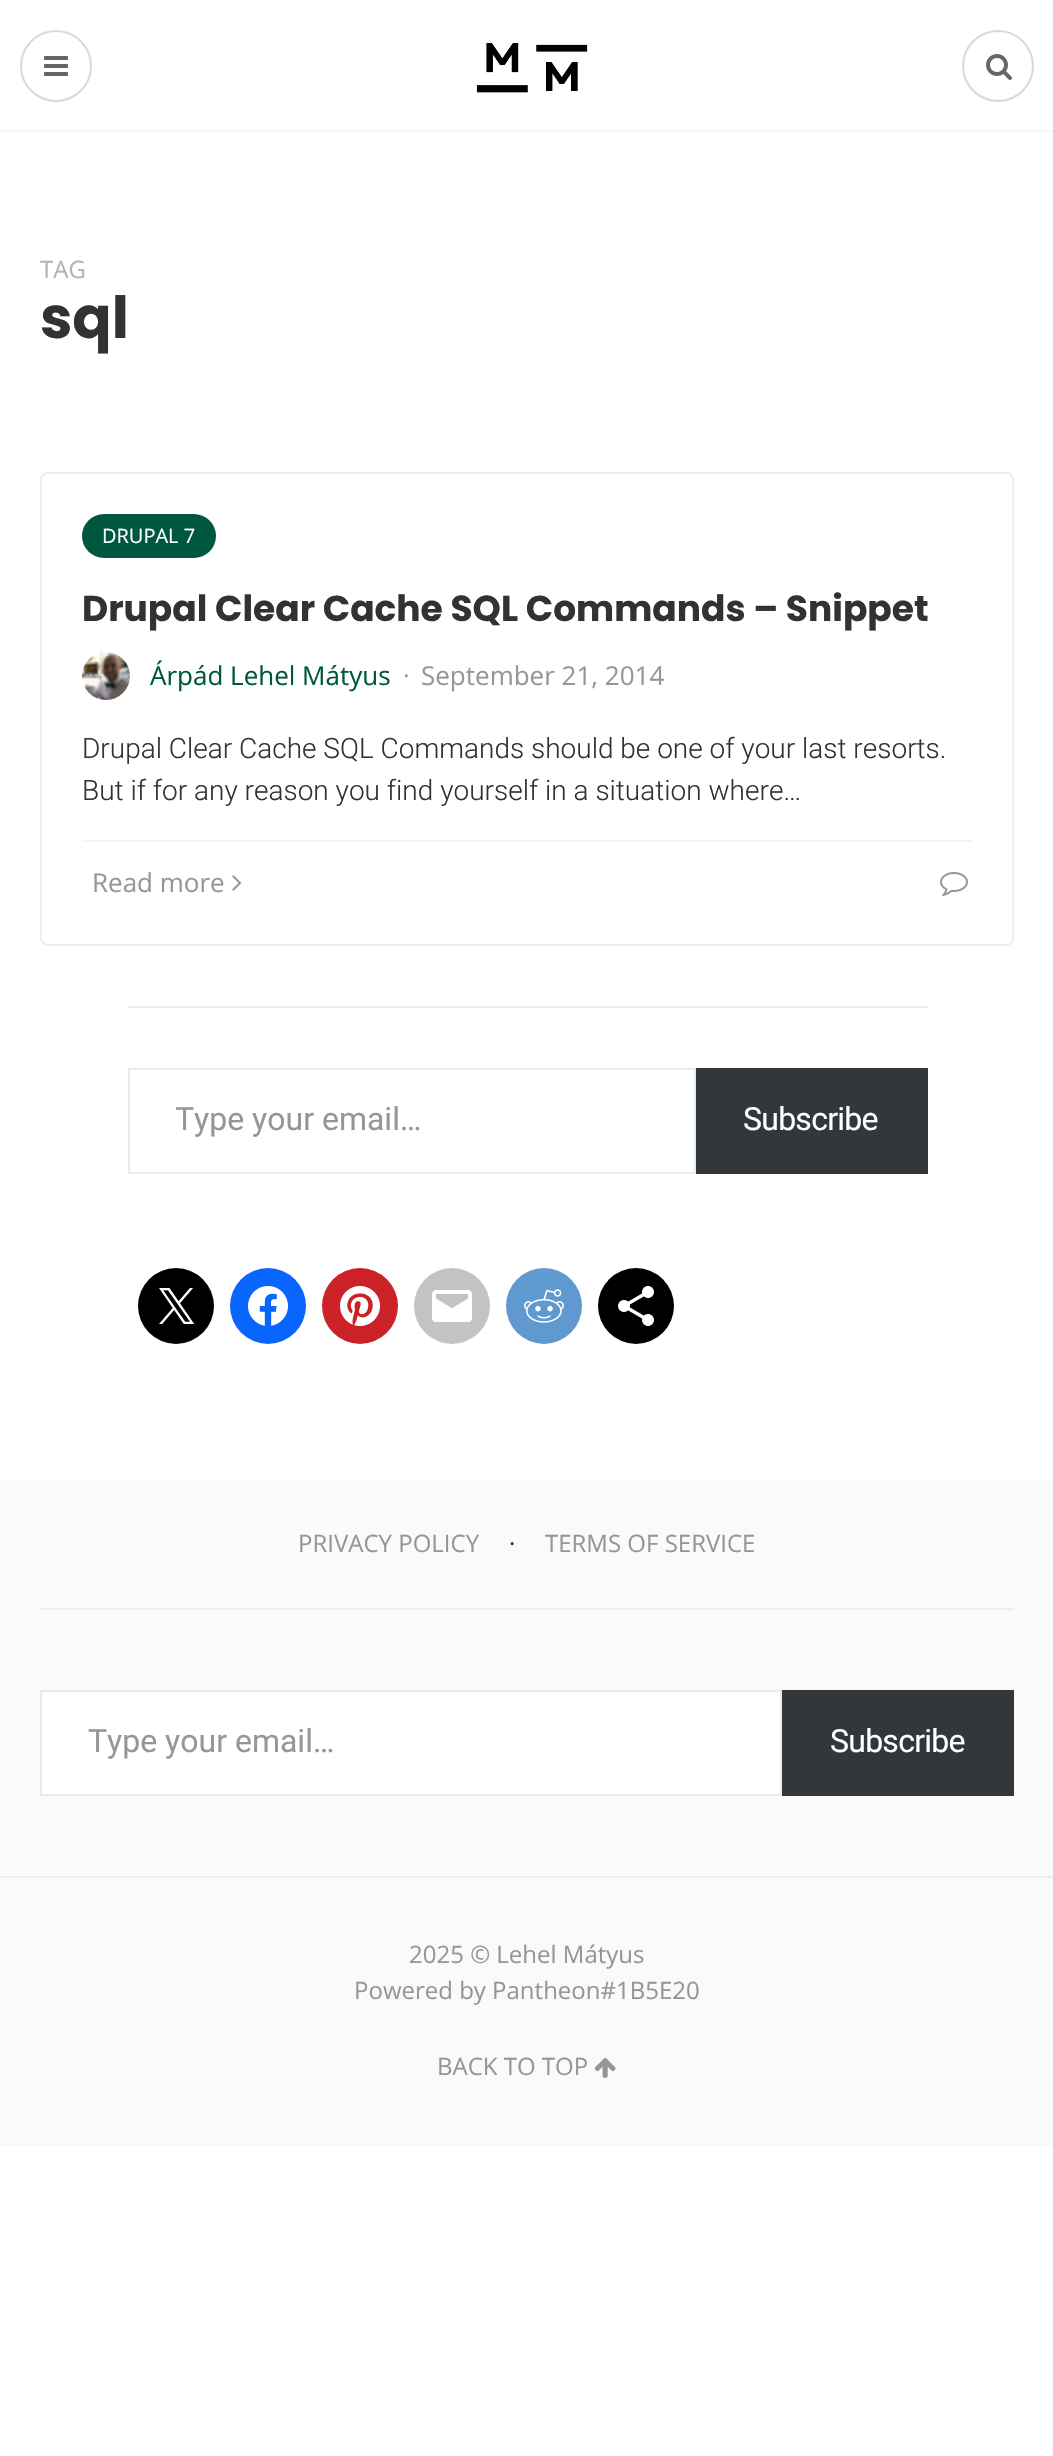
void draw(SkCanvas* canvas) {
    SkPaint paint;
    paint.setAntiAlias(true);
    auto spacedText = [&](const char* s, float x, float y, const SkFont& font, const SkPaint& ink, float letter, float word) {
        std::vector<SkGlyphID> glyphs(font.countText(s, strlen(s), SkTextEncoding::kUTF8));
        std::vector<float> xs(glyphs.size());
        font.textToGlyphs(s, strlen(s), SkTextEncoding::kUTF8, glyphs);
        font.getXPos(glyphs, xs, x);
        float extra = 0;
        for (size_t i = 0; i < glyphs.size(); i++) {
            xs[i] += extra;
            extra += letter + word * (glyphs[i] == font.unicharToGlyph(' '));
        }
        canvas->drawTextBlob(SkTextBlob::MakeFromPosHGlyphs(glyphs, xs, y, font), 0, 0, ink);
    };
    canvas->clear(0xFFFFFFFF);
    paint.setColor(0xFFF5F5F5);
    canvas->drawRect(SkRect::MakeXYWH(0, 130, 1053, 2), paint);
    paint.setStyle(SkPaint::kStroke_Style);
    paint.setStrokeWidth(2);
    paint.setColor(0xFFD9D9D9);
    canvas->drawCircle(56, 66, 35, paint);
    canvas->drawImageRect(SkImages::DeferredFromEncodedData(SkData::MakeFromFileName("img1.png")), SkRect::MakeXYWH(44, 56, 24, 20), SkSamplingOptions());
    canvas->drawImageRect(SkImages::DeferredFromEncodedData(SkData::MakeFromFileName("img2.png")), SkRect::MakeXYWH(476, 43, 112, 50), SkSamplingOptions());
    canvas->drawCircle(998, 66, 35, paint);
    canvas->drawImageRect(SkImages::DeferredFromEncodedData(SkData::MakeFromFileName("img3.png")), SkRect::MakeXYWH(986, 54, 26, 26), SkSamplingOptions());
    SkFont font1(fontMgr->matchFamilyStyle("Open Sans", SkFontStyle::Normal()), 24);
    font1.setSubpixel(true);
    paint.setStyle(SkPaint::kFill_Style);
    paint.setColor(0xFFB3B3B3);
    canvas->drawString("TAG", 40, 278, font1, paint);
    SkFont font2(fontMgr->matchFamilyStyle("Poppins", SkFontStyle::Bold()), 58);
    font2.setSubpixel(true);
    paint.setColor(0xFF323232);
    canvas->drawString("sql", 40, 338, font2, paint);
    paint.setStyle(SkPaint::kStroke_Style);
    paint.setColor(0xFFEEEEEE);
    canvas->drawRoundRect(SkRect::MakeXYWH(41, 473, 972, 472), 7, 7, paint);
    paint.setStyle(SkPaint::kFill_Style);
    paint.setColor(0xFF00573F);
    canvas->drawRoundRect(SkRect::MakeXYWH(82, 514, 134, 44), 22, 22, paint);
    SkFont font3(fontMgr->matchFamilyStyle("Open Sans", SkFontStyle::Normal()), 20);
    font3.setSubpixel(true);
    paint.setColor(0xFFFFFFFF);
    canvas->drawString("DRUPAL 7", 102, 543, font3, paint);
    SkFont font4(fontMgr->matchFamilyStyle("Poppins", SkFontStyle::Bold()), 36);
    font4.setSubpixel(true);
    paint.setColor(0xFF323232);
    canvas->drawString("Drupal Clear Cache SQL Commands – Snippet", 82, 621, font4, paint);
    canvas->drawImageRect(SkImages::DeferredFromEncodedData(SkData::MakeFromFileName("img4.png")), SkRect::MakeXYWH(82, 652, 48, 48), SkSamplingOptions());
    SkFont font5(fontMgr->matchFamilyStyle("Open Sans", SkFontStyle::Normal()), 26);
    font5.setSubpixel(true);
    paint.setColor(0xFF00573F);
    canvas->drawString("Árpád Lehel Mátyus", 150, 685, font5, paint);
    SkFont font6(fontMgr->matchFamilyStyle("Roboto", SkFontStyle::Normal()), 26);
    font6.setSubpixel(true);
    paint.setColor(0xFF969696);
    canvas->drawString("·", 403, 685, font6, paint);
    canvas->drawString("September 21, 2014", 421, 685, font5, paint);
    SkFont font7(fontMgr->matchFamilyStyle("Roboto", SkFontStyle(300, SkFontStyle::kNormal_Width, SkFontStyle::kUpright_Slant)), 28);
    font7.setSubpixel(true);
    paint.setColor(0xFF323232);
    canvas->drawString("Drupal Clear Cache SQL Commands should be one of your last resorts.", 82, 758, font7, paint);
    canvas->drawString("But if for any reason you find yourself in a situation where…", 82, 800, font7, paint);
    paint.setColor(0xFFF5F5F5);
    canvas->drawRect(SkRect::MakeXYWH(82, 840, 890, 2), paint);
    paint.setColor(0xFF969696);
    canvas->drawString("Read more", 92, 892, font5, paint);
    canvas->drawImageRect(SkImages::DeferredFromEncodedData(SkData::MakeFromFileName("img5.png")), SkRect::MakeXYWH(232, 875, 10, 16), SkSamplingOptions());
    canvas->drawImageRect(SkImages::DeferredFromEncodedData(SkData::MakeFromFileName("img6.png")), SkRect::MakeXYWH(940, 872, 28, 24), SkSamplingOptions());
    paint.setColor(0xFFEEEEEE);
    canvas->drawRect(SkRect::MakeXYWH(128, 1006, 800, 2), paint);
    paint.setStyle(SkPaint::kStroke_Style);
    paint.setColor(0xFFEBEBEB);
    canvas->drawRect(SkRect::MakeXYWH(129, 1069, 566, 104), paint);
    canvas->save();
    canvas->clipRect(SkRect::MakeXYWH(176, 1100, 472, 38));
    SkFont font8(fontMgr->matchFamilyStyle("Roboto", SkFontStyle::Normal()), 32);
    font8.setSubpixel(true);
    paint.setStyle(SkPaint::kFill_Style);
    paint.setColor(0xFF969696);
    canvas->drawString("Type your email…", 175, 1130, font8, paint);
    canvas->restore();
    paint.setColor(0xFF32373C);
    canvas->drawRect(SkRect::MakeXYWH(696, 1068, 232, 106), paint);
    paint.setColor(0xFFFFFFFF);
    spacedText("Subscribe", 743, 1130, font8, paint, -0.75f, 0);
    paint.setColor(0xFF000000);
    canvas->drawCircle(176, 1306, 38, paint);
    canvas->drawImageRect(SkImages::DeferredFromEncodedData(SkData::MakeFromFileName("img7.png")), SkRect::MakeXYWH(159, 1288, 36, 36), SkSamplingOptions());
    paint.setColor(0xFF0866FF);
    canvas->drawCircle(268, 1306, 38, paint);
    canvas->drawImageRect(SkImages::DeferredFromEncodedData(SkData::MakeFromFileName("img8.png")), SkRect::MakeXYWH(248, 1286, 40, 40), SkSamplingOptions());
    paint.setColor(0xFFCC2127);
    canvas->drawCircle(360, 1306, 38, paint);
    canvas->drawImageRect(SkImages::DeferredFromEncodedData(SkData::MakeFromFileName("img9.png")), SkRect::MakeXYWH(340, 1286, 40, 40), SkSamplingOptions());
    paint.setColor(0xFFC5C2C2);
    canvas->drawCircle(452, 1306, 38, paint);
    canvas->drawImageRect(SkImages::DeferredFromEncodedData(SkData::MakeFromFileName("img10.png")), SkRect::MakeXYWH(432, 1290, 40, 32), SkSamplingOptions());
    paint.setColor(0xFF5F99CF);
    canvas->drawCircle(544, 1306, 38, paint);
    canvas->drawImageRect(SkImages::DeferredFromEncodedData(SkData::MakeFromFileName("img11.png")), SkRect::MakeXYWH(524, 1289, 40, 34), SkSamplingOptions());
    paint.setColor(0xFF000000);
    canvas->drawCircle(636, 1306, 38, paint);
    canvas->drawImageRect(SkImages::DeferredFromEncodedData(SkData::MakeFromFileName("img12.png")), SkRect::MakeXYWH(618, 1286, 36, 40), SkSamplingOptions());
    paint.setColor(0xFFFAFAFA);
    canvas->drawRect(SkRect::MakeXYWH(0, 1480, 1053, 666), paint);
    paint.setColor(0xFFEEEEEE);
    canvas->drawRect(SkRect::MakeXYWH(40, 1608, 974, 2), paint);
    paint.setColor(0xFF969696);
    canvas->drawString("PRIVACY POLICY", 298, 1552, font1, paint);
    paint.setColor(0xFF323232);
    canvas->drawString("·", 509, 1552, font1, paint);
    paint.setColor(0xFF969696);
    canvas->drawString("TERMS OF SERVICE", 545, 1552, font1, paint);
    paint.setColor(0xFFFFFFFF);
    canvas->drawRect(SkRect::MakeXYWH(41, 1691, 740, 104), paint);
    paint.setStyle(SkPaint::kStroke_Style);
    paint.setColor(0xFFEBEBEB);
    canvas->drawRect(SkRect::MakeXYWH(41, 1691, 740, 104), paint);
    paint.setStyle(SkPaint::kFill_Style);
    paint.setColor(0xFF969696);
    canvas->drawString("Type your email…", 88, 1752, font8, paint);
    paint.setColor(0xFF32373C);
    canvas->drawRect(SkRect::MakeXYWH(782, 1690, 232, 106), paint);
    paint.setColor(0xFFFFFFFF);
    spacedText("Subscribe", 830, 1752, font8, paint, -0.75f, 0);
    paint.setColor(0xFFEEEEEE);
    canvas->drawRect(SkRect::MakeXYWH(0, 1876, 1053, 2), paint);
    paint.setColor(0xFF969696);
    canvas->drawString("2025 © Lehel Mátyus", 409, 1963, font1, paint);
    canvas->drawString("Powered by Pantheon#1B5E20", 354, 1999, font1, paint);
    canvas->drawString("BACK TO TOP", 437, 2075, font1, paint);
    canvas->drawImageRect(SkImages::DeferredFromEncodedData(SkData::MakeFromFileName("img13.png")), SkRect::MakeXYWH(594, 2058, 22, 20), SkSamplingOptions());
}
